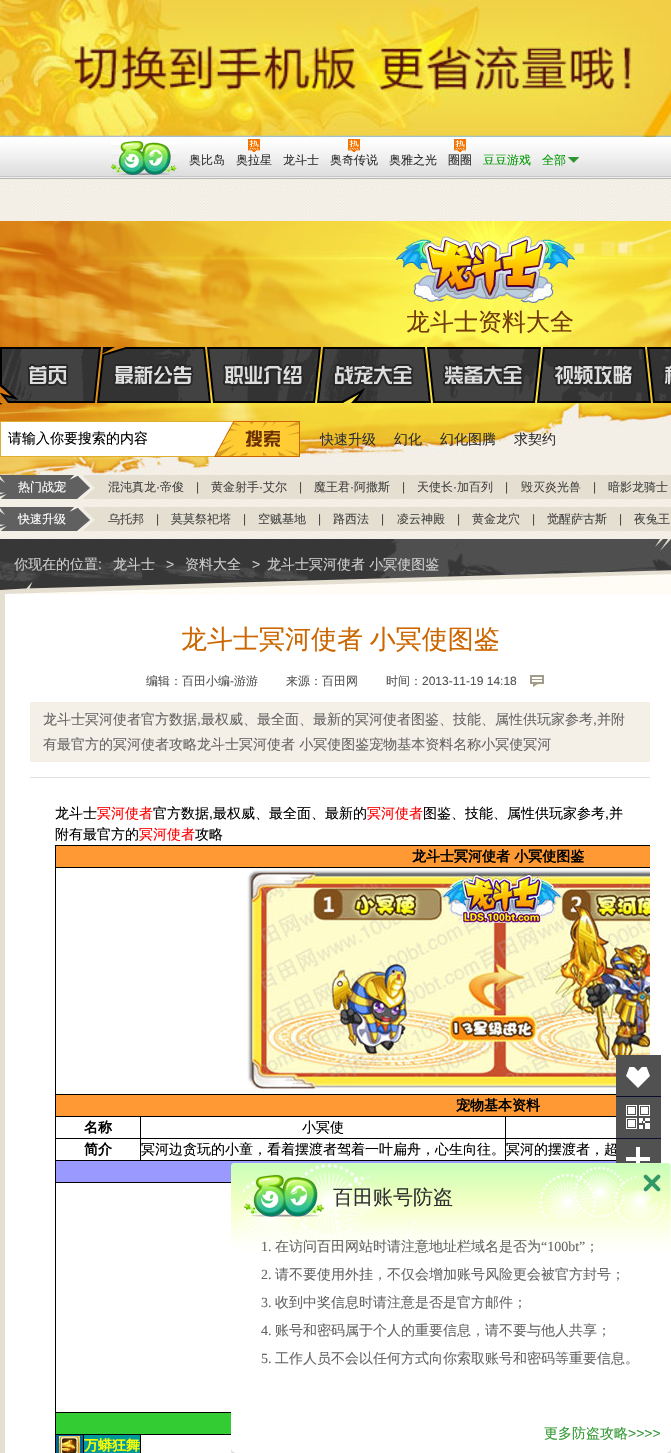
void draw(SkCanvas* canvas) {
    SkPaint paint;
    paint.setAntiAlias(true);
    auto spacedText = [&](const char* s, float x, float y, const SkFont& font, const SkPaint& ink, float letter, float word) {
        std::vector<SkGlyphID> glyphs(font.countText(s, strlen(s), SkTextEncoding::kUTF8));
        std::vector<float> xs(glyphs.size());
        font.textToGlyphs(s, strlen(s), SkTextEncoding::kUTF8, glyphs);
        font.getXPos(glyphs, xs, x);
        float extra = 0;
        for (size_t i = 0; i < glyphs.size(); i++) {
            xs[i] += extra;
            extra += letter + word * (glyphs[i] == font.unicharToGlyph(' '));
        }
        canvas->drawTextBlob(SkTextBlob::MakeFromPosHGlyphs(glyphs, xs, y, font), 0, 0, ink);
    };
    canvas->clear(0xFFFFFFFF);
    canvas->drawImageRect(SkImages::DeferredFromEncodedData(SkData::MakeFromFileName("img1.png")), SkRect::MakeXYWH(0, 179, 671, 42), SkSamplingOptions());
    canvas->drawImageRect(SkImages::DeferredFromEncodedData(SkData::MakeFromFileName("img2.png")), SkRect::MakeXYWH(0, 0, 671, 137), SkSamplingOptions());
    canvas->drawImageRect(SkImages::DeferredFromEncodedData(SkData::MakeFromFileName("img3.png")), SkRect::MakeXYWH(0, 137, 671, 42), SkSamplingOptions());
    canvas->drawImageRect(SkImages::DeferredFromEncodedData(SkData::MakeFromFileName("img4.png")), SkRect::MakeXYWH(111, 141, 66, 34), SkSamplingOptions());
    SkFont font1(fontMgr->matchFamilyStyle("WenQuanYi Zen Hei", SkFontStyle(500, SkFontStyle::kNormal_Width, SkFontStyle::kUpright_Slant)), 12);
    font1.setSubpixel(true);
    paint.setColor(0xFF313131);
    canvas->drawString("奥比岛", 189, 164, font1, paint);
    canvas->drawImageRect(SkImages::DeferredFromEncodedData(SkData::MakeFromFileName("img5.png")), SkRect::MakeXYWH(248, 139, 12, 13), SkSamplingOptions());
    canvas->drawString("奥拉星", 236, 164, font1, paint);
    canvas->drawString("龙斗士", 283, 164, font1, paint);
    canvas->drawImageRect(SkImages::DeferredFromEncodedData(SkData::MakeFromFileName("img5.png")), SkRect::MakeXYWH(348, 139, 12, 13), SkSamplingOptions());
    canvas->drawString("奥奇传说", 330, 164, font1, paint);
    canvas->drawString("奥雅之光", 389, 164, font1, paint);
    canvas->drawImageRect(SkImages::DeferredFromEncodedData(SkData::MakeFromFileName("img5.png")), SkRect::MakeXYWH(454, 139, 12, 13), SkSamplingOptions());
    canvas->drawString("圈圈", 448, 164, font1, paint);
    paint.setColor(0xFF009900);
    canvas->drawString("豆豆游戏", 483, 164, font1, paint);
    canvas->drawString("全部", 542, 164, font1, paint);
    canvas->drawImageRect(SkImages::DeferredFromEncodedData(SkData::MakeFromFileName("img6.png")), SkRect::MakeXYWH(567, 157, 12, 6), SkSamplingOptions());
    canvas->drawImageRect(SkImages::DeferredFromEncodedData(SkData::MakeFromFileName("img7.png")), SkRect::MakeXYWH(0, 221, 671, 318), SkSamplingOptions());
    SkFont font2(fontMgr->matchFamilyStyle("WenQuanYi Zen Hei", SkFontStyle(500, SkFontStyle::kNormal_Width, SkFontStyle::kUpright_Slant)), 24);
    font2.setSubpixel(true);
    paint.setColor(0xFF743B0C);
    canvas->drawString("龙斗士资料大全", 406, 330, font2, paint);
    canvas->drawImageRect(SkImages::DeferredFromEncodedData(SkData::MakeFromFileName("img8.png")), SkRect::MakeXYWH(0, 347, 671, 56), SkSamplingOptions());
    canvas->drawImageRect(SkImages::DeferredFromEncodedData(SkData::MakeFromFileName("img9.png")), SkRect::MakeXYWH(0, 386, 3, 19), SkSamplingOptions());
    canvas->drawImageRect(SkImages::DeferredFromEncodedData(SkData::MakeFromFileName("img10.png")), SkRect::MakeXYWH(0, 421, 300, 36), SkSamplingOptions());
    SkFont font3(fontMgr->matchFamilyStyle("WenQuanYi Zen Hei", SkFontStyle(500, SkFontStyle::kNormal_Width, SkFontStyle::kUpright_Slant)), 14);
    font3.setSubpixel(true);
    paint.setColor(0xFF000000);
    canvas->drawString("请输入你要搜索的内容", 8, 443, font3, paint);
    paint.setColor(0xFF313131);
    canvas->drawString("快速升级", 320, 444, font3, paint);
    canvas->drawString("幻化", 394, 444, font3, paint);
    canvas->drawString("幻化图腾", 440, 444, font3, paint);
    canvas->drawString("求契约", 514, 444, font3, paint);
    paint.setColor(0xFFE5DFD1);
    canvas->drawRect(SkRect::MakeXYWH(95, 475, 576, 24), paint);
    canvas->drawImageRect(SkImages::DeferredFromEncodedData(SkData::MakeFromFileName("img11.png")), SkRect::MakeXYWH(0, 475, 95, 24), SkSamplingOptions());
    paint.setColor(0xFFFFFFFF);
    canvas->drawString("热门战宠", 18, 491, font1, paint);
    paint.setColor(0xFF454545);
    canvas->drawString("混沌真龙", 108, 491, font1, paint);
    SkFont font4(fontMgr->matchFamilyStyle("Liberation Sans", SkFontStyle::Normal()), 12);
    font4.setSubpixel(true);
    canvas->drawString("·", 156, 491, font4, paint);
    canvas->drawString("帝俊", 160, 491, font1, paint);
    canvas->drawString("|", 196, 491, font4, paint);
    canvas->drawString("黄金射手", 211, 491, font1, paint);
    canvas->drawString("·", 259, 491, font4, paint);
    canvas->drawString("艾尔", 263, 491, font1, paint);
    canvas->drawString("|", 299, 491, font4, paint);
    canvas->drawString("魔王君", 314, 491, font1, paint);
    canvas->drawString("·", 350, 491, font4, paint);
    canvas->drawString("阿撒斯", 354, 491, font1, paint);
    canvas->drawString("|", 402, 491, font4, paint);
    canvas->drawString("天使长", 417, 491, font1, paint);
    canvas->drawString("·", 453, 491, font4, paint);
    canvas->drawString("加百列", 457, 491, font1, paint);
    canvas->drawString("|", 505, 491, font4, paint);
    canvas->drawString("毁灭炎光兽", 521, 491, font1, paint);
    canvas->drawString("|", 593, 491, font4, paint);
    canvas->drawString("暗影龙骑士", 608, 491, font1, paint);
    paint.setColor(0xFFE5DFD1);
    canvas->drawRect(SkRect::MakeXYWH(95, 507, 576, 24), paint);
    canvas->drawImageRect(SkImages::DeferredFromEncodedData(SkData::MakeFromFileName("img11.png")), SkRect::MakeXYWH(0, 507, 95, 24), SkSamplingOptions());
    paint.setColor(0xFFFFFFFF);
    canvas->drawString("快速升级", 18, 523, font1, paint);
    paint.setColor(0xFF454545);
    canvas->drawString("乌托邦", 108, 523, font1, paint);
    canvas->drawString("|", 156, 523, font4, paint);
    canvas->drawString("莫莫祭祀塔", 171, 523, font1, paint);
    canvas->drawString("|", 243, 523, font4, paint);
    canvas->drawString("空贼基地", 258, 523, font1, paint);
    canvas->drawString("|", 318, 523, font4, paint);
    canvas->drawString("路西法", 333, 523, font1, paint);
    canvas->drawString("|", 381, 523, font4, paint);
    canvas->drawString("凌云神殿", 397, 523, font1, paint);
    canvas->drawString("|", 457, 523, font4, paint);
    canvas->drawString("黄金龙穴", 472, 523, font1, paint);
    canvas->drawString("|", 532, 523, font4, paint);
    canvas->drawString("觉醒萨古斯", 547, 523, font1, paint);
    canvas->drawString("|", 619, 523, font4, paint);
    canvas->drawString("夜兔王", 634, 523, font1, paint);
    canvas->drawImageRect(SkImages::DeferredFromEncodedData(SkData::MakeFromFileName("img12.png")), SkRect::MakeXYWH(0, 539, 671, 55), SkSamplingOptions());
    paint.setColor(0xFFCCCCCC);
    canvas->drawString("你现在的位置", 14, 569, font3, paint);
    SkFont font5(fontMgr->matchFamilyStyle("Liberation Sans", SkFontStyle::Normal()), 14);
    font5.setSubpixel(true);
    canvas->drawString(":", 98, 569, font5, paint);
    canvas->drawString("龙斗士", 113, 569, font3, paint);
    canvas->drawString(">", 166, 569, font5, paint);
    canvas->drawString("资料大全", 185, 569, font3, paint);
    canvas->drawString(">", 252, 569, font5, paint);
    canvas->drawString("龙斗士冥河使者 小冥使图鉴", 267, 569, font3, paint);
    paint.setColor(0xFFE5DFD1);
    canvas->drawRect(SkRect::MakeXYWH(0, 594, 5, 859), paint);
    SkFont font6(fontMgr->matchFamilyStyle("WenQuanYi Zen Hei", SkFontStyle(500, SkFontStyle::kNormal_Width, SkFontStyle::kUpright_Slant)), 26);
    font6.setSubpixel(true);
    paint.setColor(0xFFCC6600);
    spacedText("龙斗士冥河使者 小冥使图鉴", 181, 648, font6, paint, 0, -1);
    paint.setColor(0xFF545454);
    canvas->drawString("编辑：百田小编", 146, 685, font1, paint);
    canvas->drawString("-", 230, 685, font4, paint);
    canvas->drawString("游游", 234, 685, font1, paint);
    canvas->drawString("来源：百田网", 286, 685, font1, paint);
    canvas->drawString("时间：", 386, 685, font1, paint);
    canvas->drawString("2013-11-19 14:18", 422, 685, font4, paint);
    canvas->drawImageRect(SkImages::DeferredFromEncodedData(SkData::MakeFromFileName("img13.png")), SkRect::MakeXYWH(530, 675, 14, 12), SkSamplingOptions());
    paint.setColor(0xFFF4F0E7);
    canvas->drawRect(SkRect::MakeXYWH(30, 702, 620, 60), paint);
    paint.setColor(0xFF666666);
    canvas->drawString("龙斗士冥河使者官方数据", 43, 724, font3, paint);
    canvas->drawString(",", 197, 724, font5, paint);
    canvas->drawString("最权威、最全面、最新的冥河使者图鉴、技能、属性供玩家参考", 201, 724, font3, paint);
    canvas->drawString(",", 593, 724, font5, paint);
    canvas->drawString("并附", 597, 724, font3, paint);
    canvas->drawString("有最官方的冥河使者攻略龙斗士冥河使者 小冥使图鉴宠物基本资料名称小冥使冥河", 43, 749, font3, paint);
    paint.setColor(0xFFE1E1E0);
    canvas->drawRect(SkRect::MakeXYWH(30, 777, 620, 1), paint);
    paint.setColor(0xFF000000);
    canvas->drawString("龙斗士", 55, 818, font3, paint);
    paint.setColor(0xFFFF0000);
    canvas->drawString("冥河使者", 97, 818, font3, paint);
    paint.setColor(0xFF000000);
    canvas->drawString("官方数据", 153, 818, font3, paint);
    canvas->drawString(",", 209, 818, font5, paint);
    canvas->drawString("最权威、最全面、最新的", 213, 818, font3, paint);
    paint.setColor(0xFFFF0000);
    canvas->drawString("冥河使者", 367, 818, font3, paint);
    paint.setColor(0xFF000000);
    canvas->drawString("图鉴、技能、属性供玩家参考", 423, 818, font3, paint);
    canvas->drawString(",", 605, 818, font5, paint);
    canvas->drawString("并", 609, 818, font3, paint);
    canvas->drawString("附有最官方的", 55, 839, font3, paint);
    paint.setColor(0xFFFF0000);
    canvas->drawString("冥河使者", 139, 839, font3, paint);
    paint.setColor(0xFF000000);
    canvas->drawString("攻略", 195, 839, font3, paint);
    paint.setColor(0xFFFF9933);
    canvas->drawRect(SkRect::MakeXYWH(56, 846, 594, 21), paint);
    paint.setColor(0xFF000000);
    canvas->drawRect(SkRect::MakeXYWH(55, 845, 595, 1), paint);
    canvas->drawRect(SkRect::MakeXYWH(55, 867, 595, 1), paint);
    canvas->drawRect(SkRect::MakeXYWH(55, 1094, 561, 1), paint);
    canvas->drawRect(SkRect::MakeXYWH(505, 1116, 111, 1), paint);
    canvas->drawRect(SkRect::MakeXYWH(505, 1138, 111, 1), paint);
    canvas->drawRect(SkRect::MakeXYWH(55, 1160, 561, 1), paint);
    canvas->drawRect(SkRect::MakeXYWH(505, 1138, 1, 23), paint);
    canvas->drawRect(SkRect::MakeXYWH(140, 1138, 366, 1), paint);
    canvas->drawRect(SkRect::MakeXYWH(505, 1116, 1, 23), paint);
    canvas->drawRect(SkRect::MakeXYWH(140, 1116, 366, 1), paint);
    canvas->drawRect(SkRect::MakeXYWH(140, 1138, 1, 23), paint);
    canvas->drawRect(SkRect::MakeXYWH(55, 1138, 86, 1), paint);
    canvas->drawRect(SkRect::MakeXYWH(140, 1116, 1, 23), paint);
    canvas->drawRect(SkRect::MakeXYWH(55, 1116, 86, 1), paint);
    canvas->drawRect(SkRect::MakeXYWH(55, 1182, 176, 1), paint);
    canvas->drawRect(SkRect::MakeXYWH(55, 1412, 176, 1), paint);
    canvas->drawRect(SkRect::MakeXYWH(140, 1434, 91, 1), paint);
    canvas->drawRect(SkRect::MakeXYWH(140, 1434, 1, 19), paint);
    canvas->drawRect(SkRect::MakeXYWH(83, 1434, 58, 1), paint);
    canvas->drawRect(SkRect::MakeXYWH(83, 1434, 1, 19), paint);
    canvas->drawRect(SkRect::MakeXYWH(55, 1434, 29, 1), paint);
    canvas->drawRect(SkRect::MakeXYWH(55, 1434, 1, 19), paint);
    canvas->drawRect(SkRect::MakeXYWH(55, 1412, 1, 23), paint);
    canvas->drawRect(SkRect::MakeXYWH(55, 1182, 1, 231), paint);
    canvas->drawRect(SkRect::MakeXYWH(55, 1160, 1, 23), paint);
    canvas->drawRect(SkRect::MakeXYWH(55, 1138, 1, 23), paint);
    canvas->drawRect(SkRect::MakeXYWH(55, 1116, 1, 23), paint);
    canvas->drawRect(SkRect::MakeXYWH(55, 1094, 1, 23), paint);
    canvas->drawRect(SkRect::MakeXYWH(55, 867, 1, 228), paint);
    canvas->drawRect(SkRect::MakeXYWH(55, 845, 1, 23), paint);
    SkFont font7(fontMgr->matchFamilyStyle("WenQuanYi Zen Hei", SkFontStyle::Bold()), 14);
    font7.setSubpixel(true);
    canvas->drawString("龙斗士冥河使者 小冥使图鉴", 412, 861, font7, paint);
    canvas->drawImageRect(SkImages::DeferredFromEncodedData(SkData::MakeFromFileName("img14.png")), SkRect::MakeXYWH(247, 868, 403, 224), SkSamplingOptions());
    paint.setColor(0xFFFF9933);
    canvas->drawRect(SkRect::MakeXYWH(56, 1095, 560, 21), paint);
    paint.setColor(0xFF000000);
    canvas->drawString("宠物基本资料", 456, 1110, font7, paint);
    canvas->drawString("名称", 84, 1132, font7, paint);
    canvas->drawString("小冥使", 302, 1132, font3, paint);
    canvas->drawString("简介", 84, 1154, font7, paint);
    canvas->drawString("冥河边贪玩的小童，看着摆渡者驾着一叶扁舟，心生向往。", 141, 1154, font3, paint);
    canvas->drawString("冥河的摆渡者，超", 506, 1154, font3, paint);
    paint.setColor(0xFF9999FF);
    canvas->drawRect(SkRect::MakeXYWH(56, 1161, 560, 21), paint);
    paint.setColor(0xFF33CC33);
    canvas->drawRect(SkRect::MakeXYWH(56, 1413, 175, 21), paint);
    paint.setColor(0xFF006699);
    canvas->drawRect(SkRect::MakeXYWH(56, 1435, 27, 18), paint);
    canvas->drawImageRect(SkImages::DeferredFromEncodedData(SkData::MakeFromFileName("img15.png")), SkRect::MakeXYWH(59, 1436, 21, 17), SkSamplingOptions());
    paint.setColor(0xFF009999);
    canvas->drawRect(SkRect::MakeXYWH(84, 1435, 56, 18), paint);
    paint.setColor(0xFFFFFF00);
    canvas->drawString("万蟒狂舞", 84, 1450, font7, paint);
    paint.setColor(0xFF0B0E2E);
    canvas->drawRect(SkRect::MakeXYWH(616, 1096, 45, 43), paint);
    canvas->drawImageRect(SkImages::DeferredFromEncodedData(SkData::MakeFromFileName("img16.png")), SkRect::MakeXYWH(616, 1055, 45, 41), SkSamplingOptions());
    canvas->drawImageRect(SkImages::DeferredFromEncodedData(SkData::MakeFromFileName("img17.png")), SkRect::MakeXYWH(616, 1097, 45, 41), SkSamplingOptions());
    canvas->drawImageRect(SkImages::DeferredFromEncodedData(SkData::MakeFromFileName("img18.png")), SkRect::MakeXYWH(616, 1139, 45, 24), SkSamplingOptions());
    canvas->drawImageRect(SkImages::DeferredFromEncodedData(SkData::MakeFromFileName("img19.png")), SkRect::MakeXYWH(231, 1163, 440, 290), SkSamplingOptions());
    canvas->drawImageRect(SkImages::DeferredFromEncodedData(SkData::MakeFromFileName("img20.png")), SkRect::MakeXYWH(643, 1173, 18, 19), SkSamplingOptions());
    SkFont font8(fontMgr->matchFamilyStyle("WenQuanYi Zen Hei", SkFontStyle(500, SkFontStyle::kNormal_Width, SkFontStyle::kUpright_Slant)), 20);
    font8.setSubpixel(true);
    paint.setColor(0xFF313131);
    canvas->drawString("百田账号防盗", 333, 1204, font8, paint);
    SkFont font9(fontMgr->matchFamilyStyle("Liberation Serif", SkFontStyle::Normal()), 14);
    font9.setSubpixel(true);
    paint.setColor(0xFF666666);
    canvas->drawString("1.", 261, 1251, font9, paint);
    canvas->drawString("在访问百田网站时请注意地址栏域名是否为", 275, 1251, font3, paint);
    canvas->drawString("“100bt”", 541, 1251, font9, paint);
    canvas->drawString("；", 585, 1251, font3, paint);
    canvas->drawString("2.", 261, 1279, font9, paint);
    canvas->drawString("请不要使用外挂，不仅会增加账号风险更会被官方封号；", 275, 1279, font3, paint);
    canvas->drawString("3.", 261, 1307, font9, paint);
    canvas->drawString("收到中奖信息时请注意是否是官方邮件；", 275, 1307, font3, paint);
    canvas->drawString("4.", 261, 1335, font9, paint);
    canvas->drawString("账号和密码属于个人的重要信息，请不要与他人共享；", 275, 1335, font3, paint);
    canvas->drawString("5.", 261, 1363, font9, paint);
    canvas->drawString("工作人员不会以任何方式向你索取账号和密码等重要信息。", 275, 1363, font3, paint);
    paint.setColor(0xFF339933);
    canvas->drawString("更多防盗攻略", 544, 1438, font3, paint);
    canvas->drawString(">>>>", 628, 1438, font5, paint);
}
